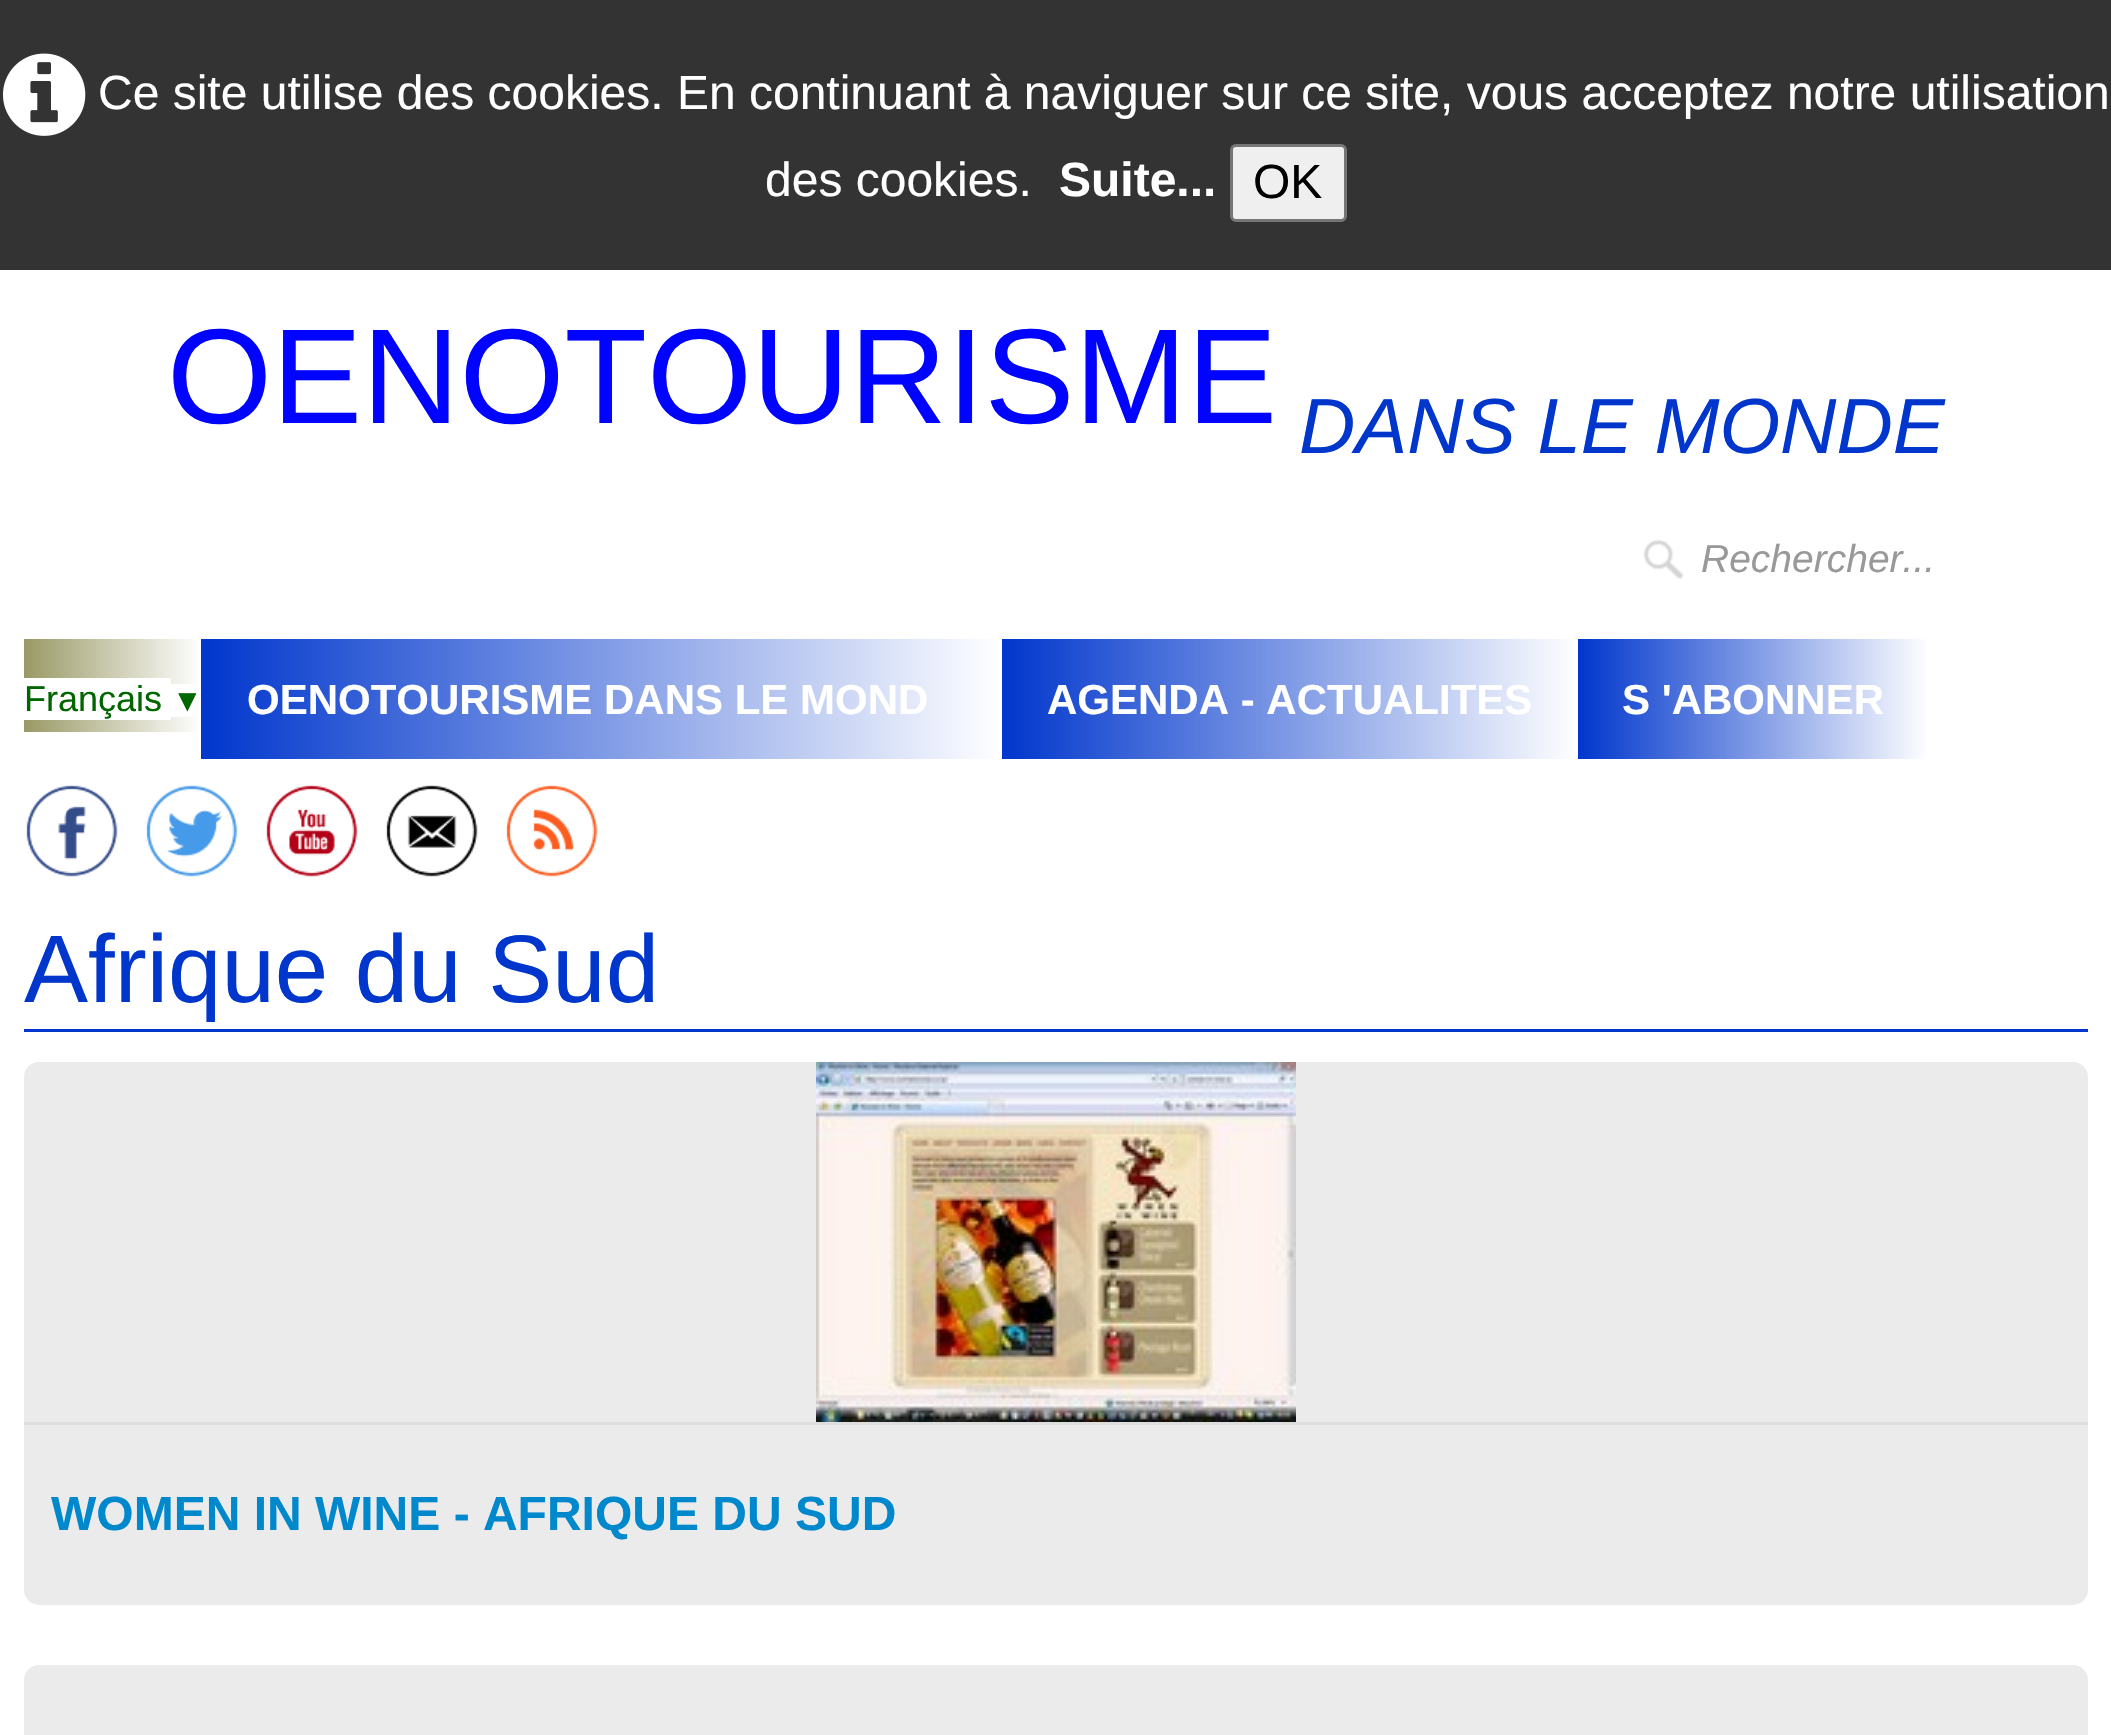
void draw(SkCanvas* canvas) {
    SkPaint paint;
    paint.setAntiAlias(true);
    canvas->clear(0xFFFFFFFF);
    paint.setColor(0xFF333333);
    canvas->drawRect(SkRect::MakeXYWH(0, 0, 2111, 270), paint);
    canvas->drawImageRect(SkImages::DeferredFromEncodedData(SkData::MakeFromFileName("img1.png")), SkRect::MakeXYWH(3, 53, 83, 83), SkSamplingOptions());
    SkFont font1(fontMgr->matchFamilyStyle("Liberation Sans", SkFontStyle::Normal()), 48);
    font1.setSubpixel(true);
    paint.setColor(0xFFFFFFFF);
    canvas->drawString("Ce site utilise des cookies. En continuant à naviguer sur ce site, vous acceptez notre utilisation", 98, 109, font1, paint);
    canvas->drawString("des cookies.", 765, 196, font1, paint);
    SkFont font2(fontMgr->matchFamilyStyle("Liberation Sans", SkFontStyle::Bold()), 48);
    font2.setSubpixel(true);
    canvas->drawString("Suite...", 1059, 196, font2, paint);
    paint.setColor(0xFFEFEFEF);
    canvas->drawRoundRect(SkRect::MakeXYWH(1231.5f, 145.5f, 114, 75), 4.5f, 4.5f, paint);
    paint.setStyle(SkPaint::kStroke_Style);
    paint.setStrokeWidth(3);
    paint.setColor(0xFF767676);
    canvas->drawRoundRect(SkRect::MakeXYWH(1231.5f, 145.5f, 114, 75), 4.5f, 4.5f, paint);
    paint.setStyle(SkPaint::kFill_Style);
    paint.setColor(0xFF000000);
    canvas->drawString("OK", 1253, 198, font1, paint);
    SkFont font3(fontMgr->matchFamilyStyle("Liberation Sans", SkFontStyle::Normal()), 135);
    font3.setSubpixel(true);
    paint.setColor(0xFF0004FF);
    canvas->drawString("OENOTOURISME", 167, 423, font3, paint);
    SkFont font4(fontMgr->matchFamilyStyle("Liberation Sans", SkFontStyle::Italic()), 78);
    font4.setSubpixel(true);
    paint.setColor(0xFF0036CC);
    canvas->drawString("DANS LE MONDE", 1299, 453, font4, paint);
    canvas->drawImageRect(SkImages::DeferredFromEncodedData(SkData::MakeFromFileName("img2.png")), SkRect::MakeXYWH(1643, 539, 41, 41), SkSamplingOptions());
    SkFont font5(fontMgr->matchFamilyStyle("Liberation Sans", SkFontStyle::Italic()), 39);
    font5.setSubpixel(true);
    paint.setColor(0xFF999999);
    canvas->drawString("Rechercher...", 1701, 572, font5, paint);
    {
        const SkColor colors[] = {0xFF999966, 0xFFFFFFFF};
        const float stops[] = {0, 1};
        const SkPoint ends[] = {{24, 686}, {201, 686}};
        paint.setShader(SkGradientShader::MakeLinear(ends, colors, stops, 2, SkTileMode::kClamp));
        paint.setAlpha(255);
    }
    canvas->drawRect(SkRect::MakeXYWH(24, 639, 174, 93), paint);
    paint.setShader(nullptr);
    paint.setColor(0xFFFFFFFF);
    canvas->drawRect(SkRect::MakeXYWH(24, 678, 147, 42), paint);
    SkFont font6(fontMgr->matchFamilyStyle("Liberation Sans", SkFontStyle::Normal()), 36);
    font6.setSubpixel(true);
    paint.setColor(0xFF006600);
    canvas->drawString("Français", 24, 711, font6, paint);
    paint.setColor(0xFFFFFFFF);
    canvas->drawRect(SkRect::MakeXYWH(171, 684, 27, 33), paint);
    SkFont font7(fontMgr->matchFamilyStyle("Liberation Sans", SkFontStyle::Normal()), 31);
    font7.setSubpixel(true);
    paint.setColor(0xFF006600);
    canvas->drawString("▼", 172, 711, font7, paint);
    {
        const SkColor colors[] = {0xFF0036CC, 0xFFFFFFFF};
        const float stops[] = {0, 1};
        const SkPoint ends[] = {{201, 699}, {1002, 699}};
        paint.setShader(SkGradientShader::MakeLinear(ends, colors, stops, 2, SkTileMode::kClamp));
        paint.setAlpha(255);
    }
    canvas->drawRect(SkRect::MakeXYWH(201, 639, 793, 120), paint);
    SkFont font8(fontMgr->matchFamilyStyle("Liberation Sans", SkFontStyle::Bold()), 42);
    font8.setSubpixel(true);
    paint.setShader(nullptr);
    paint.setColor(0xFFFFFFFF);
    canvas->drawString("OENOTOURISME DANS LE MOND", 247, 714, font8, paint);
    {
        const SkColor colors[] = {0xFF0036CC, 0xFFFFFFFF};
        const float stops[] = {0, 1};
        const SkPoint ends[] = {{1002, 699}, {1578, 699}};
        paint.setShader(SkGradientShader::MakeLinear(ends, colors, stops, 2, SkTileMode::kClamp));
        paint.setAlpha(255);
    }
    canvas->drawRect(SkRect::MakeXYWH(1002, 639, 570, 120), paint);
    paint.setShader(nullptr);
    paint.setColor(0xFFFFFFFF);
    canvas->drawString("AGENDA - ACTUALITES", 1047, 714, font8, paint);
    {
        const SkColor colors[] = {0xFF0036CC, 0xFFFFFFFF};
        const float stops[] = {0, 1};
        const SkPoint ends[] = {{1578, 699}, {1929, 699}};
        paint.setShader(SkGradientShader::MakeLinear(ends, colors, stops, 2, SkTileMode::kClamp));
        paint.setAlpha(255);
    }
    canvas->drawRect(SkRect::MakeXYWH(1578, 639, 348, 120), paint);
    paint.setShader(nullptr);
    paint.setColor(0xFFFFFFFF);
    canvas->drawString("S 'ABONNER", 1622, 714, font8, paint);
    canvas->drawImageRect(SkImages::DeferredFromEncodedData(SkData::MakeFromFileName("img3.png")), SkRect::MakeXYWH(26, 785, 92, 92), SkSamplingOptions());
    canvas->drawImageRect(SkImages::DeferredFromEncodedData(SkData::MakeFromFileName("img4.png")), SkRect::MakeXYWH(146, 785, 92, 92), SkSamplingOptions());
    canvas->drawImageRect(SkImages::DeferredFromEncodedData(SkData::MakeFromFileName("img5.png")), SkRect::MakeXYWH(266, 785, 92, 92), SkSamplingOptions());
    canvas->drawImageRect(SkImages::DeferredFromEncodedData(SkData::MakeFromFileName("img6.png")), SkRect::MakeXYWH(386, 785, 92, 92), SkSamplingOptions());
    canvas->drawImageRect(SkImages::DeferredFromEncodedData(SkData::MakeFromFileName("img7.png")), SkRect::MakeXYWH(506, 785, 92, 92), SkSamplingOptions());
    paint.setColor(0xFF0036CC);
    canvas->drawRect(SkRect::MakeXYWH(24, 1029, 2064, 3), paint);
    SkFont font9(fontMgr->matchFamilyStyle("Liberation Sans", SkFontStyle::Normal()), 96);
    font9.setSubpixel(true);
    canvas->drawString("Afrique du Sud", 24, 1002, font9, paint);
    paint.setColor(0xFFEBEBEB);
    canvas->drawRoundRect(SkRect::MakeXYWH(24, 1062, 2064, 543), 15, 15, paint);
    canvas->drawImageRect(SkImages::DeferredFromEncodedData(SkData::MakeFromFileName("img8.png")), SkRect::MakeXYWH(816, 1062, 480, 360), SkSamplingOptions());
    paint.setColor(0xFFDEDEDE);
    canvas->drawRect(SkRect::MakeXYWH(24, 1422, 2064, 3), paint);
    paint.setColor(0xFF0088CC);
    canvas->drawString("WOMEN IN WINE - AFRIQUE DU SUD", 51, 1530, font2, paint);
    paint.setColor(0xFFEBEBEB);
    canvas->drawRoundRect(SkRect::MakeXYWH(24, 1665, 2064, 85), 15, 15, paint);
}
